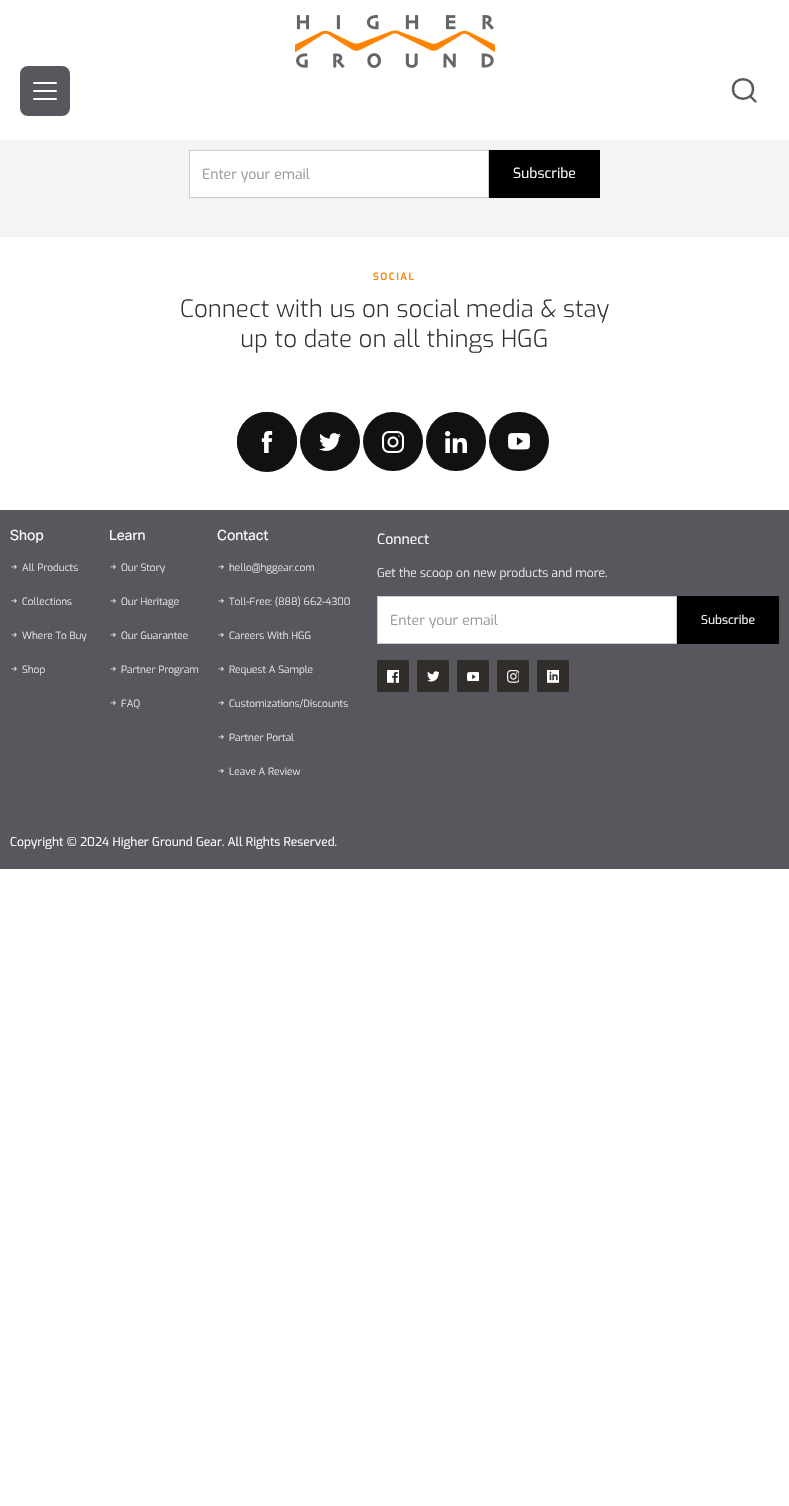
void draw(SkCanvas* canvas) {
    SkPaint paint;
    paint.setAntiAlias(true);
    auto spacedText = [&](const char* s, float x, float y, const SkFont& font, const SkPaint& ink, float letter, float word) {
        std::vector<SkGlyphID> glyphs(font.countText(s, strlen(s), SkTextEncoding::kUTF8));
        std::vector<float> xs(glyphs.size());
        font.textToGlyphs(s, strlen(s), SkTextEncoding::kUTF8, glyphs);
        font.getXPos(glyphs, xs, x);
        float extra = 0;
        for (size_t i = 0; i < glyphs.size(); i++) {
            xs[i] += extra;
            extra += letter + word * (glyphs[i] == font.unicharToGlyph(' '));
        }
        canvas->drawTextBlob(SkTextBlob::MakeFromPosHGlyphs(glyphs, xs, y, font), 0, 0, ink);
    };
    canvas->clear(0xFFFFFFFF);
    canvas->drawImageRect(SkImages::DeferredFromEncodedData(SkData::MakeFromFileName("img1.png")), SkRect::MakeXYWH(295, 15, 200, 53), SkSamplingOptions());
    paint.setColor(0xFF58575D);
    canvas->drawRoundRect(SkRect::MakeXYWH(20, 66, 50, 50), 8, 8, paint);
    paint.setColor(0xFFFFFFFF);
    canvas->drawRoundRect(SkRect::MakeXYWH(33, 82, 24, 2), 1, 1, paint);
    canvas->drawRoundRect(SkRect::MakeXYWH(33, 90, 24, 2), 1, 1, paint);
    canvas->drawRoundRect(SkRect::MakeXYWH(33, 98, 24, 2), 1, 1, paint);
    paint.setStyle(SkPaint::kStroke_Style);
    paint.setStrokeWidth(2.4f);
    paint.setStrokeCap(SkPaint::kRound_Cap);
    paint.setStrokeJoin(SkPaint::kRound_Join);
    paint.setColor(0xFF58575D);
    canvas->drawPath(SkPathBuilder().moveTo(753, 89).cubicTo(753, 102, 733, 102, 733, 89).cubicTo(733, 76, 753, 76, 753, 89).close().moveTo(755.5f, 101.5f).lineTo(750, 96).detach(), paint);
    paint.setStyle(SkPaint::kFill_Style);
    paint.setColor(0xFFF4F4F4);
    canvas->drawRect(SkRect::MakeXYWH(0, 140, 789, 97), paint);
    paint.setColor(0xFFFFFFFF);
    canvas->drawRect(SkRect::MakeXYWH(189.5f, 150.5f, 299, 47), paint);
    paint.setStyle(SkPaint::kStroke_Style);
    paint.setStrokeWidth(1);
    paint.setStrokeCap(SkPaint::kButt_Cap);
    paint.setStrokeJoin(SkPaint::kMiter_Join);
    paint.setColor(0xFFCCCCCC);
    canvas->drawRect(SkRect::MakeXYWH(189.5f, 150.5f, 299, 47), paint);
    SkFont font1(fontMgr->matchFamilyStyle("Exo", SkFontStyle::Normal()), 14);
    font1.setSubpixel(true);
    paint.setStyle(SkPaint::kFill_Style);
    paint.setColor(0xFF999999);
    canvas->drawString("Enter your email", 202, 179, font1, paint);
    paint.setColor(0xFF000000);
    canvas->drawRect(SkRect::MakeXYWH(489, 150, 111, 48), paint);
    paint.setColor(0xFFFFFFFF);
    canvas->drawString("Subscribe", 513, 178, font1, paint);
    SkFont font2(fontMgr->matchFamilyStyle("Exo", SkFontStyle(600, SkFontStyle::kNormal_Width, SkFontStyle::kUpright_Slant)), 10);
    font2.setSubpixel(true);
    paint.setColor(0xFFF98509);
    spacedText("SOCIAL", 373, 280, font2, paint, 1.5f, 0);
    SkFont font3(fontMgr->matchFamilyStyle("Exo", SkFontStyle(300, SkFontStyle::kNormal_Width, SkFontStyle::kUpright_Slant)), 24);
    font3.setSubpixel(true);
    paint.setColor(0xFF333333);
    canvas->drawString("Connect with us on social media & stay", 180, 317, font3, paint);
    canvas->drawString("up to date on all things HGG", 240, 347, font3, paint);
    paint.setColor(0xFF111111);
    canvas->drawCircle(267, 442, 30, paint);
    canvas->drawRoundRect(SkRect::MakeXYWH(237, 412, 60, 59), 29.5f, 29.5f, paint);
    canvas->drawImageRect(SkImages::DeferredFromEncodedData(SkData::MakeFromFileName("img2.png")), SkRect::MakeXYWH(261, 431, 12, 22), SkSamplingOptions());
    canvas->drawRoundRect(SkRect::MakeXYWH(300, 412, 60, 59), 29.5f, 29.5f, paint);
    canvas->drawImageRect(SkImages::DeferredFromEncodedData(SkData::MakeFromFileName("img3.png")), SkRect::MakeXYWH(319, 433, 22, 18), SkSamplingOptions());
    canvas->drawRoundRect(SkRect::MakeXYWH(363, 412, 60, 59), 29.5f, 29.5f, paint);
    canvas->drawImageRect(SkImages::DeferredFromEncodedData(SkData::MakeFromFileName("img4.png")), SkRect::MakeXYWH(382, 431, 22, 22), SkSamplingOptions());
    canvas->drawRoundRect(SkRect::MakeXYWH(426, 412, 60, 59), 29.5f, 29.5f, paint);
    canvas->drawImageRect(SkImages::DeferredFromEncodedData(SkData::MakeFromFileName("img5.png")), SkRect::MakeXYWH(445, 431, 22, 22), SkSamplingOptions());
    canvas->drawRoundRect(SkRect::MakeXYWH(489, 412, 60, 59), 29.5f, 29.5f, paint);
    canvas->drawImageRect(SkImages::DeferredFromEncodedData(SkData::MakeFromFileName("img6.png")), SkRect::MakeXYWH(508, 433, 22, 17), SkSamplingOptions());
    paint.setColor(0xFF58575D);
    canvas->drawRect(SkRect::MakeXYWH(0, 510, 789, 359), paint);
    SkFont font4(fontMgr->matchFamilyStyle("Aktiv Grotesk", SkFontStyle::Normal()), 14);
    font4.setSubpixel(true);
    paint.setColor(0xFFFFFFFF);
    canvas->drawString("Shop", 10, 540, font4, paint);
    canvas->drawImageRect(SkImages::DeferredFromEncodedData(SkData::MakeFromFileName("img7.png")), SkRect::MakeXYWH(11, 564, 6, 5), SkSamplingOptions());
    SkFont font5(fontMgr->matchFamilyStyle("Exo", SkFontStyle(300, SkFontStyle::kNormal_Width, SkFontStyle::kUpright_Slant)), 10);
    font5.setSubpixel(true);
    paint.setColor(0xFFF4F4F4);
    canvas->drawString("All Products", 22, 571, font5, paint);
    canvas->drawImageRect(SkImages::DeferredFromEncodedData(SkData::MakeFromFileName("img7.png")), SkRect::MakeXYWH(11, 598, 6, 5), SkSamplingOptions());
    canvas->drawString("Collections", 22, 605, font5, paint);
    canvas->drawImageRect(SkImages::DeferredFromEncodedData(SkData::MakeFromFileName("img7.png")), SkRect::MakeXYWH(11, 632, 6, 5), SkSamplingOptions());
    canvas->drawString("Where To Buy", 22, 639, font5, paint);
    canvas->drawImageRect(SkImages::DeferredFromEncodedData(SkData::MakeFromFileName("img7.png")), SkRect::MakeXYWH(11, 666, 6, 5), SkSamplingOptions());
    canvas->drawString("Shop", 22, 673, font5, paint);
    paint.setColor(0xFFFFFFFF);
    canvas->drawString("Learn", 109, 540, font4, paint);
    canvas->drawImageRect(SkImages::DeferredFromEncodedData(SkData::MakeFromFileName("img7.png")), SkRect::MakeXYWH(110, 564, 6, 5), SkSamplingOptions());
    paint.setColor(0xFFF4F4F4);
    canvas->drawString("Our Story", 121, 571, font5, paint);
    canvas->drawImageRect(SkImages::DeferredFromEncodedData(SkData::MakeFromFileName("img7.png")), SkRect::MakeXYWH(110, 598, 6, 5), SkSamplingOptions());
    canvas->drawString("Our Heritage", 121, 605, font5, paint);
    canvas->drawImageRect(SkImages::DeferredFromEncodedData(SkData::MakeFromFileName("img7.png")), SkRect::MakeXYWH(110, 632, 6, 5), SkSamplingOptions());
    canvas->drawString("Our Guarantee", 121, 639, font5, paint);
    canvas->drawImageRect(SkImages::DeferredFromEncodedData(SkData::MakeFromFileName("img7.png")), SkRect::MakeXYWH(110, 666, 6, 5), SkSamplingOptions());
    canvas->drawString("Partner Program", 121, 673, font5, paint);
    canvas->drawImageRect(SkImages::DeferredFromEncodedData(SkData::MakeFromFileName("img7.png")), SkRect::MakeXYWH(110, 700, 6, 5), SkSamplingOptions());
    canvas->drawString("FAQ", 121, 707, font5, paint);
    paint.setColor(0xFFFFFFFF);
    canvas->drawString("Contact", 217, 540, font4, paint);
    canvas->drawImageRect(SkImages::DeferredFromEncodedData(SkData::MakeFromFileName("img7.png")), SkRect::MakeXYWH(218, 564, 6, 5), SkSamplingOptions());
    paint.setColor(0xFFF4F4F4);
    canvas->drawString("hello@hggear.com", 229, 571, font5, paint);
    canvas->drawImageRect(SkImages::DeferredFromEncodedData(SkData::MakeFromFileName("img7.png")), SkRect::MakeXYWH(218, 598, 6, 5), SkSamplingOptions());
    canvas->drawString("Toll-Free: (888) 662-4300", 229, 605, font5, paint);
    canvas->drawImageRect(SkImages::DeferredFromEncodedData(SkData::MakeFromFileName("img7.png")), SkRect::MakeXYWH(218, 632, 6, 5), SkSamplingOptions());
    canvas->drawString("Careers With HGG", 229, 639, font5, paint);
    canvas->drawImageRect(SkImages::DeferredFromEncodedData(SkData::MakeFromFileName("img7.png")), SkRect::MakeXYWH(218, 666, 6, 5), SkSamplingOptions());
    canvas->drawString("Request A Sample", 229, 673, font5, paint);
    canvas->drawImageRect(SkImages::DeferredFromEncodedData(SkData::MakeFromFileName("img7.png")), SkRect::MakeXYWH(218, 700, 6, 5), SkSamplingOptions());
    canvas->drawString("Customizations/Discounts", 229, 707, font5, paint);
    canvas->drawImageRect(SkImages::DeferredFromEncodedData(SkData::MakeFromFileName("img7.png")), SkRect::MakeXYWH(218, 734, 6, 5), SkSamplingOptions());
    canvas->drawString("Partner Portal", 229, 741, font5, paint);
    canvas->drawImageRect(SkImages::DeferredFromEncodedData(SkData::MakeFromFileName("img7.png")), SkRect::MakeXYWH(218, 768, 6, 5), SkSamplingOptions());
    canvas->drawString("Leave A Review", 229, 775, font5, paint);
    paint.setColor(0xFFFFFFFF);
    canvas->drawString("Connect", 377, 544, font1, paint);
    SkFont font6(fontMgr->matchFamilyStyle("Exo", SkFontStyle(300, SkFontStyle::kNormal_Width, SkFontStyle::kUpright_Slant)), 12);
    font6.setSubpixel(true);
    canvas->drawString("Get the scoop on new products and more.", 377, 577, font6, paint);
    canvas->drawRect(SkRect::MakeXYWH(377.5f, 596.5f, 299, 47), paint);
    paint.setStyle(SkPaint::kStroke_Style);
    paint.setColor(0xFFCCCCCC);
    canvas->drawRect(SkRect::MakeXYWH(377.5f, 596.5f, 299, 47), paint);
    paint.setStyle(SkPaint::kFill_Style);
    paint.setColor(0xFF999999);
    canvas->drawString("Enter your email", 390, 625, font1, paint);
    paint.setColor(0xFF000000);
    canvas->drawRect(SkRect::MakeXYWH(677, 596, 102, 48), paint);
    SkFont font7(fontMgr->matchFamilyStyle("Exo", SkFontStyle::Normal()), 12);
    font7.setSubpixel(true);
    paint.setColor(0xFFFFFFFF);
    canvas->drawString("Subscribe", 701, 624, font7, paint);
    paint.setColor(0xFF302D2B);
    canvas->drawRoundRect(SkRect::MakeXYWH(377, 660, 32, 32), 2, 2, paint);
    canvas->drawImageRect(SkImages::DeferredFromEncodedData(SkData::MakeFromFileName("img8.png")), SkRect::MakeXYWH(387, 670, 12, 13), SkSamplingOptions());
    canvas->drawRoundRect(SkRect::MakeXYWH(417, 660, 32, 32), 2, 2, paint);
    canvas->drawImageRect(SkImages::DeferredFromEncodedData(SkData::MakeFromFileName("img9.png")), SkRect::MakeXYWH(427, 671, 12, 11), SkSamplingOptions());
    canvas->drawRoundRect(SkRect::MakeXYWH(457, 660, 32, 32), 2, 2, paint);
    canvas->drawImageRect(SkImages::DeferredFromEncodedData(SkData::MakeFromFileName("img10.png")), SkRect::MakeXYWH(467, 672, 12, 9), SkSamplingOptions());
    canvas->drawRoundRect(SkRect::MakeXYWH(497, 660, 32, 32), 2, 2, paint);
    canvas->drawImageRect(SkImages::DeferredFromEncodedData(SkData::MakeFromFileName("img11.png")), SkRect::MakeXYWH(507, 670, 12, 13), SkSamplingOptions());
    canvas->drawRoundRect(SkRect::MakeXYWH(537, 660, 32, 32), 2, 2, paint);
    canvas->drawImageRect(SkImages::DeferredFromEncodedData(SkData::MakeFromFileName("img12.png")), SkRect::MakeXYWH(547, 670, 12, 13), SkSamplingOptions());
    paint.setColor(0xFFFFFFFF);
    canvas->drawString("Copyright © 2024 Higher Ground Gear. All Rights Reserved.", 10, 846, font7, paint);
}
